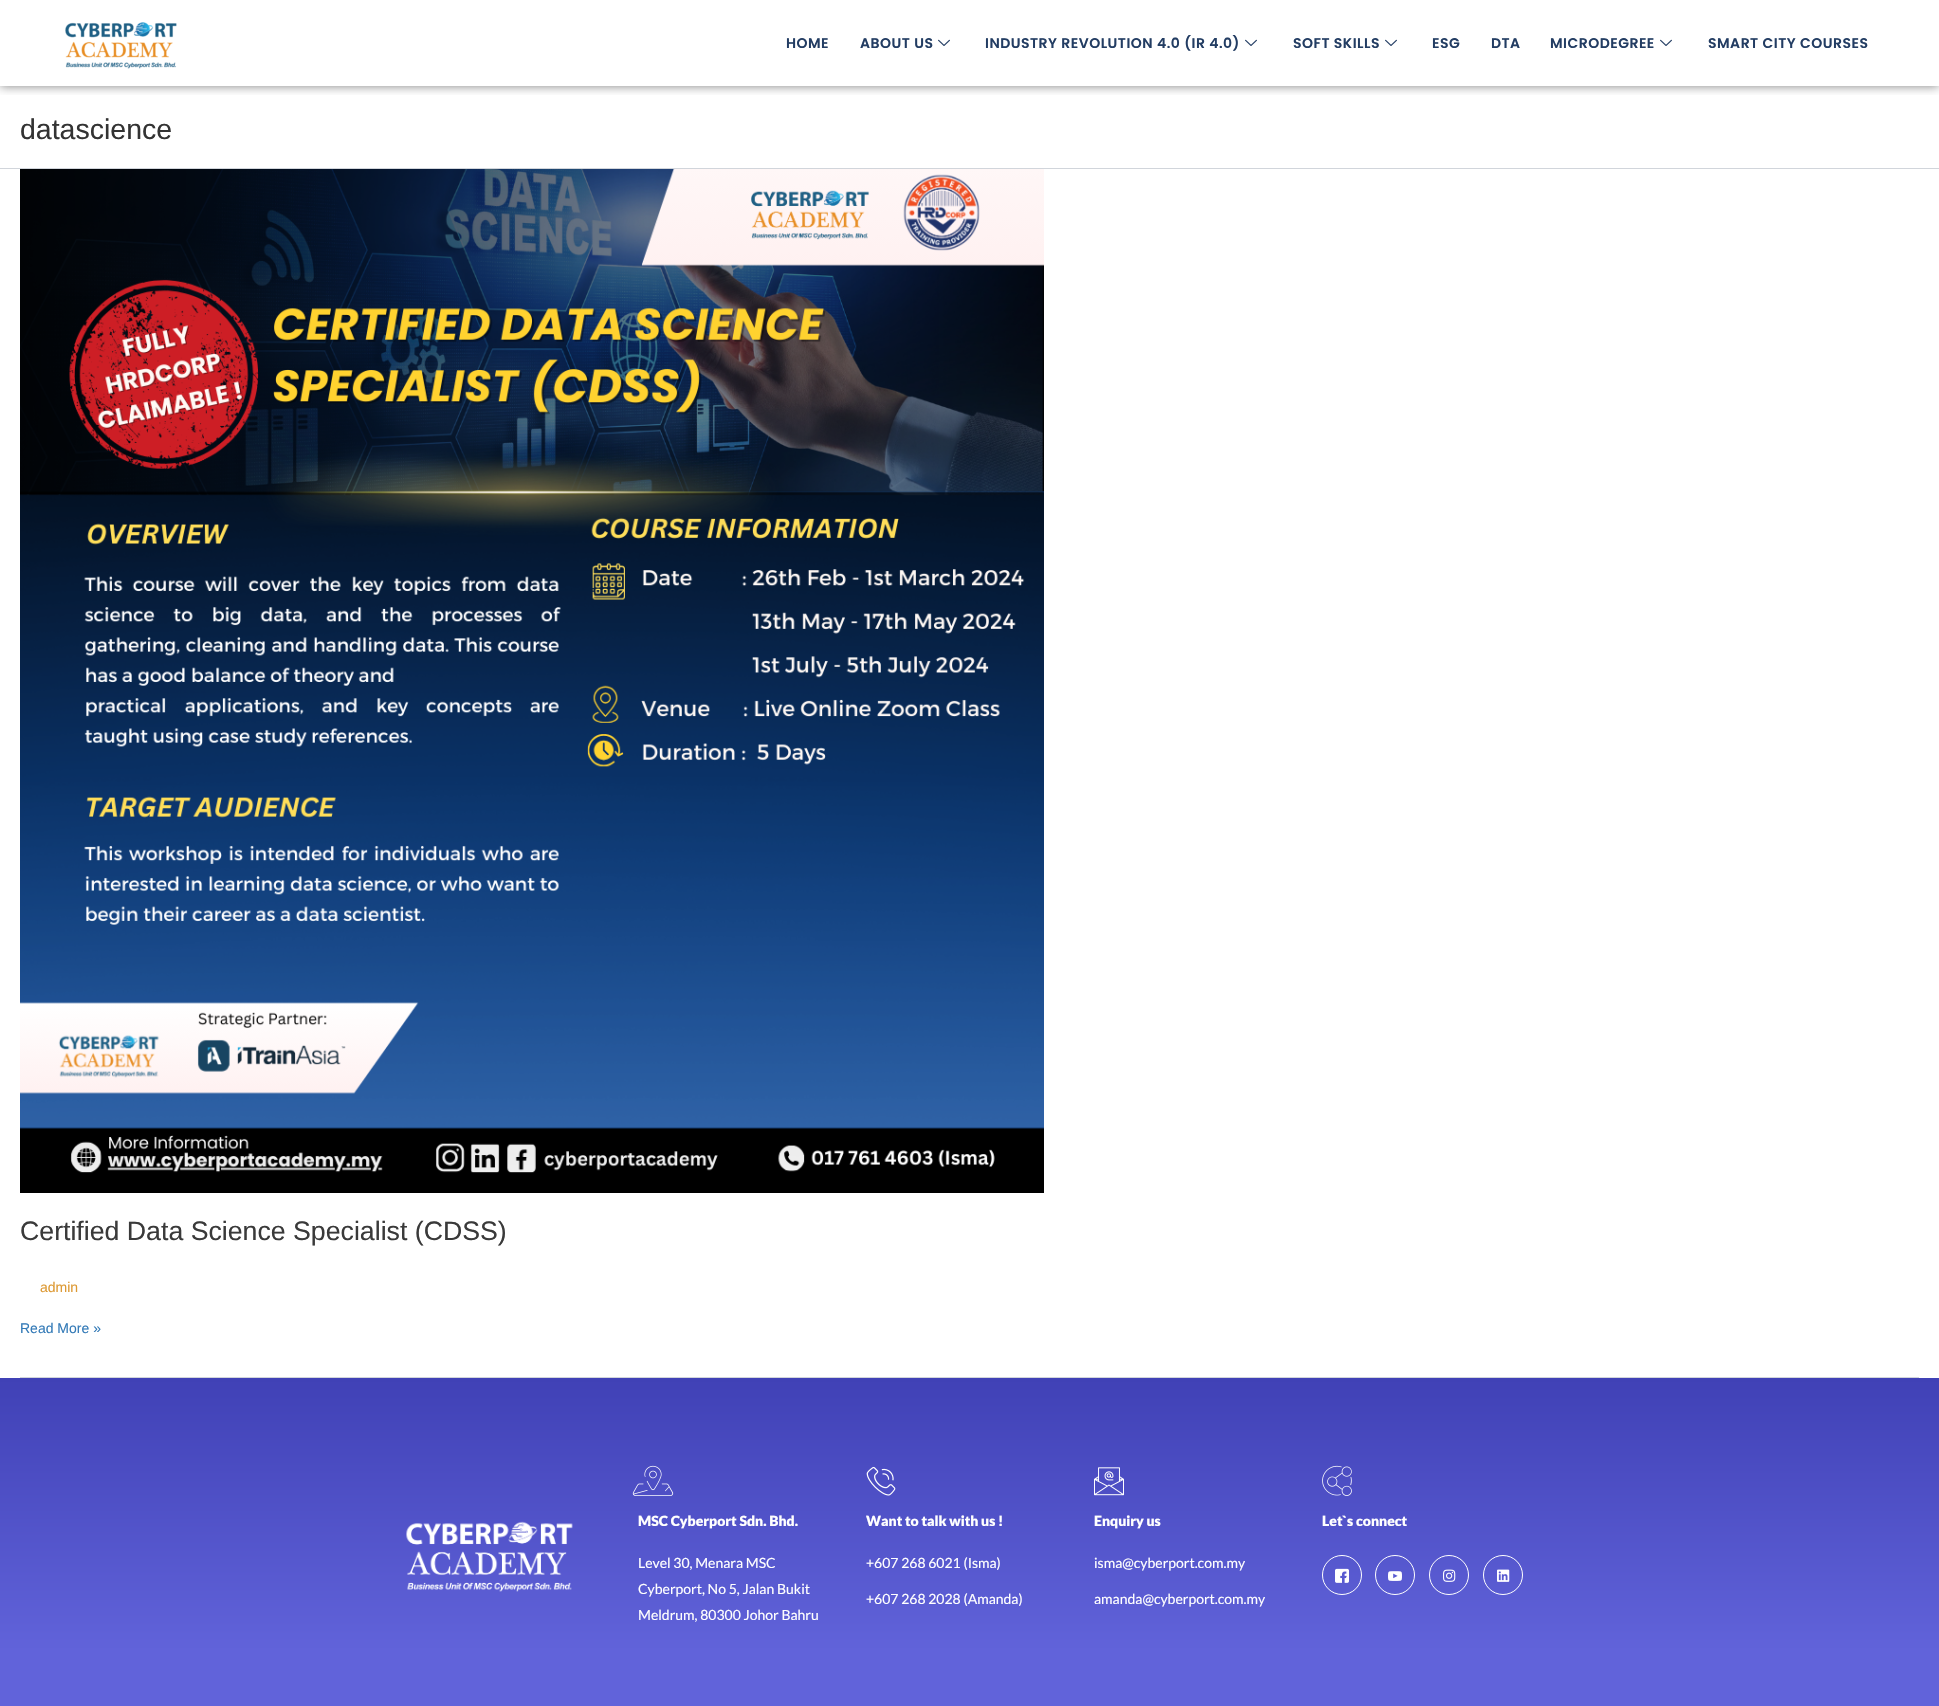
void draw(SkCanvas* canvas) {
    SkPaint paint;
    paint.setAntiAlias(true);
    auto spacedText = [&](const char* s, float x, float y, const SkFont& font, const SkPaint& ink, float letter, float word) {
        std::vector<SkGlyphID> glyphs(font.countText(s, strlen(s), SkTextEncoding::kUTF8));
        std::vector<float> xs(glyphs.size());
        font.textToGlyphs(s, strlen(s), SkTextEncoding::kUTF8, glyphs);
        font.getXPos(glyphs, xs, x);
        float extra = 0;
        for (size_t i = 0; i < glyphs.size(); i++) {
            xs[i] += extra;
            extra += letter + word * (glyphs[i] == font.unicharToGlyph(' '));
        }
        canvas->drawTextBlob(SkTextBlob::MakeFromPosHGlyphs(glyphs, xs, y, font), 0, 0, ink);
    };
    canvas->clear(0xFFFFFFFF);
    canvas->save();
    canvas->clipRect(SkRect::MakeXYWH(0, 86, 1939, 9));
    paint.setColor(0x80000000);
    paint.setMaskFilter(SkMaskFilter::MakeBlur(kNormal_SkBlurStyle, 5));
    canvas->drawRect(SkRect::MakeXYWH(0, 0, 1939, 86), paint);
    paint.setMaskFilter(nullptr);
    canvas->restore();
    canvas->drawImageRect(SkImages::DeferredFromEncodedData(SkData::MakeFromFileName("img1.png")), SkRect::MakeXYWH(65, 22, 112, 47), SkSamplingOptions());
    SkFont font1(fontMgr->matchFamilyStyle("Poppins", SkFontStyle(600, SkFontStyle::kNormal_Width, SkFontStyle::kUpright_Slant)), 14);
    font1.setSubpixel(true);
    paint.setColor(0xFF233D63);
    spacedText("HOME", 786, 48, font1, paint, 0.5f, 0);
    spacedText("ABOUT US", 860, 48, font1, paint, 0.5f, 0);
    canvas->drawImageRect(SkImages::DeferredFromEncodedData(SkData::MakeFromFileName("img2.png")), SkRect::MakeXYWH(938, 39, 12, 7), SkSamplingOptions());
    spacedText("INDUSTRY REVOLUTION 4.0 (IR 4.0)", 985, 48, font1, paint, 0.5f, 0);
    canvas->drawImageRect(SkImages::DeferredFromEncodedData(SkData::MakeFromFileName("img2.png")), SkRect::MakeXYWH(1245, 39, 12, 7), SkSamplingOptions());
    spacedText("SOFT SKILLS", 1293, 48, font1, paint, 0.5f, 0);
    canvas->drawImageRect(SkImages::DeferredFromEncodedData(SkData::MakeFromFileName("img2.png")), SkRect::MakeXYWH(1385, 39, 12, 7), SkSamplingOptions());
    spacedText("ESG", 1432, 48, font1, paint, 0.5f, 0);
    spacedText("DTA", 1491, 48, font1, paint, 0.5f, 0);
    spacedText("MICRODEGREE", 1550, 48, font1, paint, 0.5f, 0);
    canvas->drawImageRect(SkImages::DeferredFromEncodedData(SkData::MakeFromFileName("img2.png")), SkRect::MakeXYWH(1660, 39, 12, 7), SkSamplingOptions());
    spacedText("SMART CITY COURSES", 1708, 48, font1, paint, 0.5f, 0);
    paint.setColor(0xFFD1D5DB);
    canvas->drawRect(SkRect::MakeXYWH(0, 168, 1939, 1), paint);
    SkFont font2(fontMgr->matchFamilyStyle("Liberation Sans", SkFontStyle::Normal()), 28.5f);
    font2.setSubpixel(true);
    paint.setColor(0xFF333333);
    canvas->drawString("datascience", 20, 139, font2, paint);
    paint.setColor(0xFFD1D5DB);
    canvas->drawRect(SkRect::MakeXYWH(20, 1377, 1899, 1), paint);
    canvas->drawImageRect(SkImages::DeferredFromEncodedData(SkData::MakeFromFileName("img3.png")), SkRect::MakeXYWH(20, 169, 1024, 1024), SkSamplingOptions());
    SkFont font3(fontMgr->matchFamilyStyle("Liberation Sans", SkFontStyle::Normal()), 26.7f);
    font3.setSubpixel(true);
    paint.setColor(0xFF3A3A3A);
    canvas->drawString("Certified Data Science Specialist (CDSS)", 20, 1240, font3, paint);
    SkFont font4(fontMgr->matchFamilyStyle("Liberation Sans", SkFontStyle::Normal()), 14);
    font4.setSubpixel(true);
    paint.setColor(0xFFDD9933);
    canvas->drawString("admin", 40, 1292, font4, paint);
    paint.setColor(0xFF337AB7);
    canvas->drawString("Read More »", 20, 1333, font4, paint);
    {
        const SkColor colors[] = {0xFF4041B6, 0xFF6163DA};
        const float stops[] = {0, 0.83f};
        const SkPoint ends[] = {{970, 1378}, {970, 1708}};
        paint.setShader(SkGradientShader::MakeLinear(ends, colors, stops, 2, SkTileMode::kClamp));
        paint.setAlpha(255);
    }
    canvas->drawRect(SkRect::MakeXYWH(0, 1378, 1939, 328), paint);
    canvas->drawImageRect(SkImages::DeferredFromEncodedData(SkData::MakeFromFileName("img4.png")), SkRect::MakeXYWH(406, 1521, 167, 71), SkSamplingOptions());
    canvas->drawImageRect(SkImages::DeferredFromEncodedData(SkData::MakeFromFileName("img5.png")), SkRect::MakeXYWH(632, 1465, 42, 31), SkSamplingOptions());
    SkFont font5(fontMgr->matchFamilyStyle("Lato", SkFontStyle(900, SkFontStyle::kNormal_Width, SkFontStyle::kUpright_Slant)), 14);
    font5.setSubpixel(true);
    paint.setShader(nullptr);
    paint.setColor(0xFFFFFFFF);
    canvas->drawString("MSC Cyberport Sdn. Bhd.", 638, 1526, font5, paint);
    SkFont font6(fontMgr->matchFamilyStyle("Lato", SkFontStyle::Normal()), 14);
    font6.setSubpixel(true);
    canvas->drawString("Level 30, Menara MSC", 638, 1568, font6, paint);
    canvas->drawString("Cyberport, No 5, Jalan Bukit", 638, 1594, font6, paint);
    canvas->drawString("Meldrum, 80300 Johor Bahru", 638, 1620, font6, paint);
    canvas->drawImageRect(SkImages::DeferredFromEncodedData(SkData::MakeFromFileName("img6.png")), SkRect::MakeXYWH(866, 1466, 30, 30), SkSamplingOptions());
    canvas->drawString("Want to talk with us !", 866, 1526, font5, paint);
    canvas->drawString("+607 268 6021 (Isma)", 866, 1568, font6, paint);
    canvas->drawString("+607 268 2028 (Amanda)", 866, 1604, font6, paint);
    canvas->drawImageRect(SkImages::DeferredFromEncodedData(SkData::MakeFromFileName("img7.png")), SkRect::MakeXYWH(1094, 1467, 30, 29), SkSamplingOptions());
    canvas->drawString("Enquiry us", 1094, 1526, font5, paint);
    canvas->drawString("isma@cyberport.com.my", 1094, 1568, font6, paint);
    canvas->drawString("amanda@cyberport.com.my", 1094, 1604, font6, paint);
    canvas->drawImageRect(SkImages::DeferredFromEncodedData(SkData::MakeFromFileName("img8.png")), SkRect::MakeXYWH(1322, 1465, 30, 31), SkSamplingOptions());
    canvas->drawString("Let`s connect", 1322, 1526, font5, paint);
    paint.setStyle(SkPaint::kStroke_Style);
    paint.setStrokeWidth(1);
    canvas->drawCircle(1342, 1575, 19.5f, paint);
    canvas->drawImageRect(SkImages::DeferredFromEncodedData(SkData::MakeFromFileName("img9.png")), SkRect::MakeXYWH(1335, 1568, 14, 15), SkSamplingOptions());
    canvas->drawCircle(1395, 1575, 19.5f, paint);
    canvas->drawImageRect(SkImages::DeferredFromEncodedData(SkData::MakeFromFileName("img10.png")), SkRect::MakeXYWH(1388, 1571, 14, 10), SkSamplingOptions());
    canvas->drawCircle(1449, 1575, 19.5f, paint);
    canvas->drawImageRect(SkImages::DeferredFromEncodedData(SkData::MakeFromFileName("img11.png")), SkRect::MakeXYWH(1443, 1569, 13, 13), SkSamplingOptions());
    canvas->drawCircle(1503, 1575, 19.5f, paint);
    canvas->drawImageRect(SkImages::DeferredFromEncodedData(SkData::MakeFromFileName("img12.png")), SkRect::MakeXYWH(1497, 1569, 13, 13), SkSamplingOptions());
}
